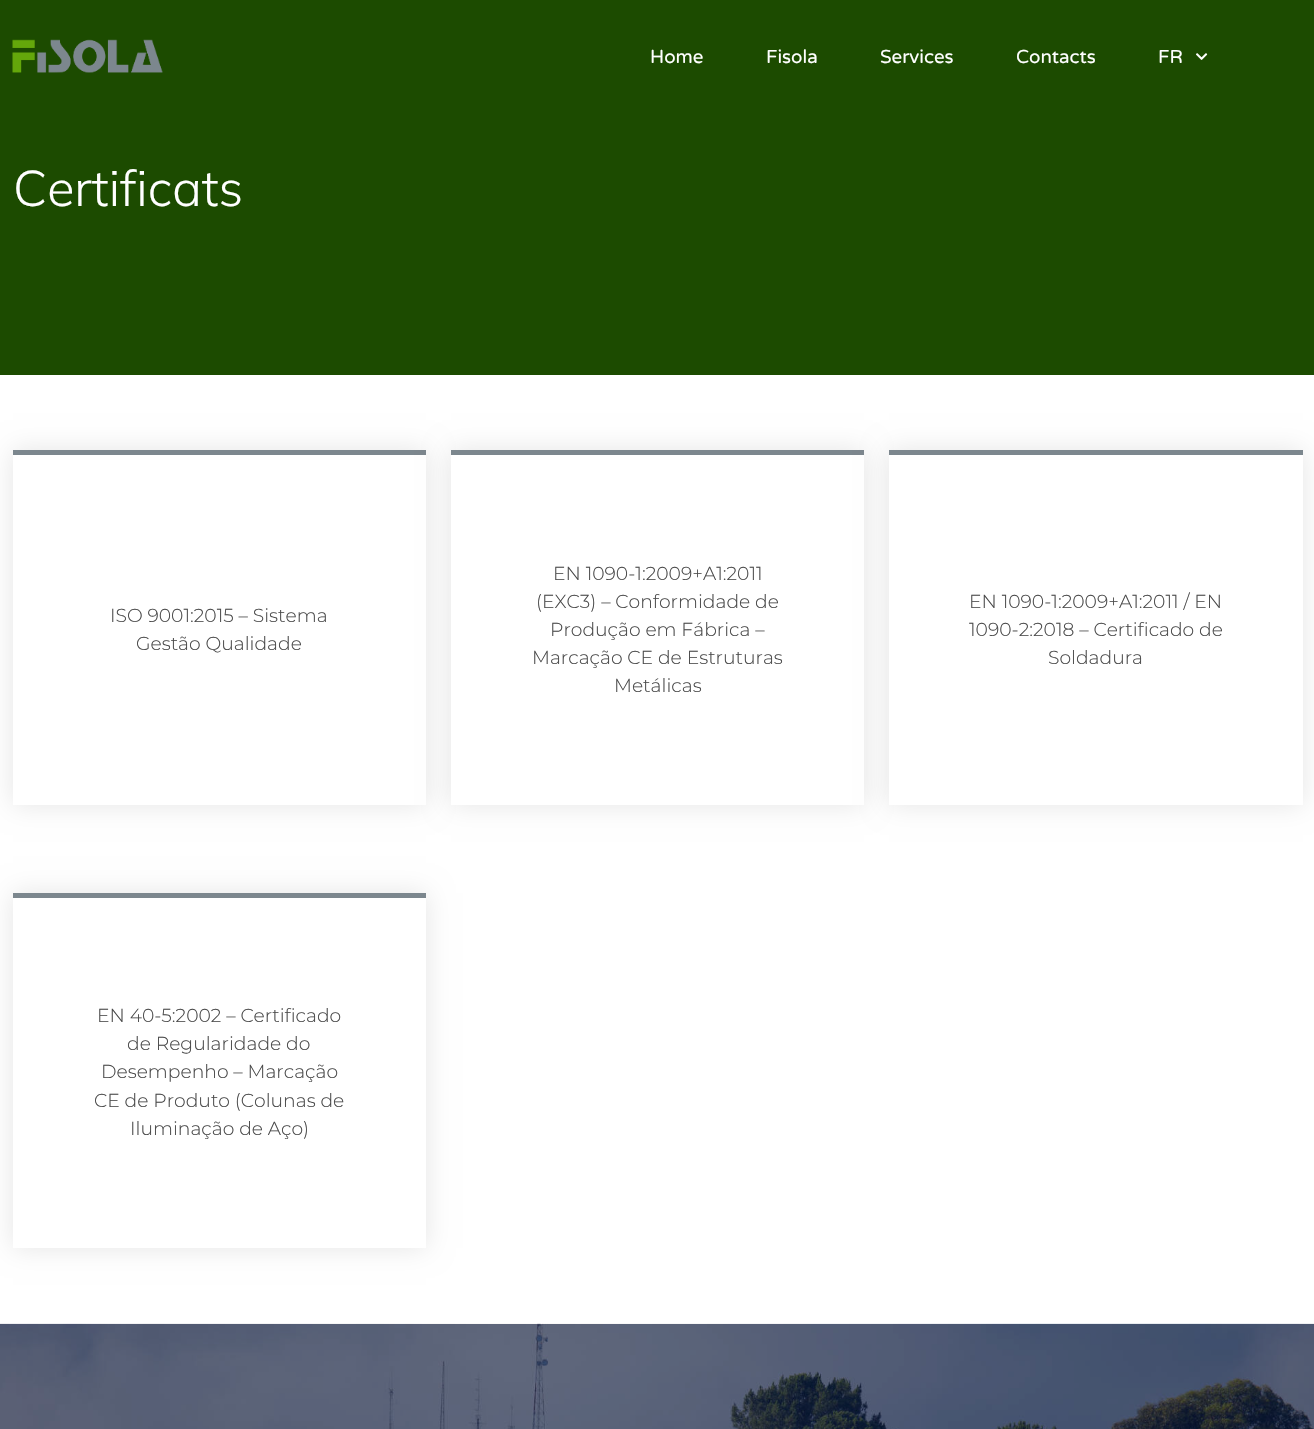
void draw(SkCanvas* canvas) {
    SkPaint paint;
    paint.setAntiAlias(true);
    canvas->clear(0xFFFFFFFF);
    paint.setColor(0xFF1C4B00);
    canvas->drawRect(SkRect::MakeXYWH(0, 0, 1314, 375), paint);
    canvas->drawImageRect(SkImages::DeferredFromEncodedData(SkData::MakeFromFileName("img1.png")), SkRect::MakeXYWH(12, 39, 151, 34), SkSamplingOptions());
    SkFont font1(fontMgr->matchFamilyStyle("Varela Round", SkFontStyle::Normal()), 18.75f);
    font1.setSubpixel(true);
    paint.setColor(0xFFFFFFFF);
    canvas->drawString("Home", 650, 63, font1, paint);
    canvas->drawString("Fisola", 766, 63, font1, paint);
    canvas->drawString("Services", 880, 63, font1, paint);
    canvas->drawString("Contacts", 1016, 63, font1, paint);
    canvas->drawString("FR", 1158, 63, font1, paint);
    canvas->drawImageRect(SkImages::DeferredFromEncodedData(SkData::MakeFromFileName("img2.png")), SkRect::MakeXYWH(1196, 53, 12, 7), SkSamplingOptions());
    SkFont font2(fontMgr->matchFamilyStyle("Mulish", SkFontStyle(300, SkFontStyle::kNormal_Width, SkFontStyle::kUpright_Slant)), 50);
    font2.setSubpixel(true);
    canvas->drawString("Certificats", 13, 206, font2, paint);
    canvas->save();
    canvas->clipPath(SkPathBuilder(SkPathFillType::kEvenOdd).moveTo(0, 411).lineTo(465, 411).lineTo(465, 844).lineTo(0, 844).close().moveTo(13, 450).lineTo(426, 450).lineTo(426, 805).lineTo(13, 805).close().detach(), true);
    paint.setColor(0x1A000000);
    paint.setMaskFilter(SkMaskFilter::MakeBlur(kNormal_SkBlurStyle, 12.5f));
    canvas->drawRect(SkRect::MakeXYWH(13, 450, 413, 355), paint);
    paint.setMaskFilter(nullptr);
    canvas->restore();
    paint.setColor(0xFF7C878E);
    canvas->drawRect(SkRect::MakeXYWH(13, 450, 413, 5), paint);
    SkFont font3(fontMgr->matchFamilyStyle("Montserrat", SkFontStyle(300, SkFontStyle::kNormal_Width, SkFontStyle::kUpright_Slant)), 18.75f);
    font3.setSubpixel(true);
    paint.setColor(0xFF4A4A4A);
    canvas->drawString("ISO 9001:2015 – Sistema", 110, 622, font3, paint);
    canvas->drawString("Gestão Qualidade", 136, 650, font3, paint);
    paint.setColor(0x1A000000);
    paint.setMaskFilter(SkMaskFilter::MakeBlur(kNormal_SkBlurStyle, 12.5f));
    canvas->drawRect(SkRect::MakeXYWH(451, 450, 413, 355), paint);
    paint.setMaskFilter(nullptr);
    paint.setColor(0xFFFFFFFF);
    canvas->drawRect(SkRect::MakeXYWH(451, 455, 413, 350), paint);
    paint.setColor(0xFF7C878E);
    canvas->drawRect(SkRect::MakeXYWH(451, 450, 413, 5), paint);
    paint.setColor(0xFF4A4A4A);
    canvas->drawString("EN 1090-1:2009+A1:2011", 553, 580, font3, paint);
    canvas->drawString("(EXC3) – Conformidade de", 536, 608, font3, paint);
    canvas->drawString("Produção em Fábrica –", 550, 636, font3, paint);
    canvas->drawString("Marcação CE de Estruturas", 532, 664, font3, paint);
    canvas->drawString("Metálicas", 614, 692, font3, paint);
    paint.setColor(0x1A000000);
    paint.setMaskFilter(SkMaskFilter::MakeBlur(kNormal_SkBlurStyle, 12.5f));
    canvas->drawRect(SkRect::MakeXYWH(889, 450, 414, 355), paint);
    paint.setMaskFilter(nullptr);
    paint.setColor(0xFFFFFFFF);
    canvas->drawRect(SkRect::MakeXYWH(889, 455, 414, 350), paint);
    paint.setColor(0xFF7C878E);
    canvas->drawRect(SkRect::MakeXYWH(889, 450, 414, 5), paint);
    paint.setColor(0xFF4A4A4A);
    canvas->drawString("EN 1090-1:2009+A1:2011 / EN", 969, 608, font3, paint);
    canvas->drawString("1090-2:2018 – Certificado de", 969, 636, font3, paint);
    canvas->drawString("Soldadura", 1048, 664, font3, paint);
    paint.setColor(0x1A000000);
    paint.setMaskFilter(SkMaskFilter::MakeBlur(kNormal_SkBlurStyle, 12.5f));
    canvas->drawRect(SkRect::MakeXYWH(13, 893, 413, 355), paint);
    paint.setMaskFilter(nullptr);
    paint.setColor(0xFFFFFFFF);
    canvas->drawRect(SkRect::MakeXYWH(13, 898, 413, 350), paint);
    paint.setColor(0xFF7C878E);
    canvas->drawRect(SkRect::MakeXYWH(13, 893, 413, 5), paint);
    paint.setColor(0xFF4A4A4A);
    canvas->drawString("EN 40-5:2002 – Certificado", 97, 1022, font3, paint);
    canvas->drawString("de Regularidade do", 127, 1050, font3, paint);
    canvas->drawString("Desempenho – Marcação", 101, 1078, font3, paint);
    canvas->drawString("CE de Produto (Colunas de", 94, 1107, font3, paint);
    canvas->drawString("Iluminação de Aço)", 130, 1135, font3, paint);
    canvas->drawImageRect(SkImages::DeferredFromEncodedData(SkData::MakeFromFileName("img3.png")), SkRect::MakeXYWH(0, 1323, 1314, 106), SkSamplingOptions());
}
